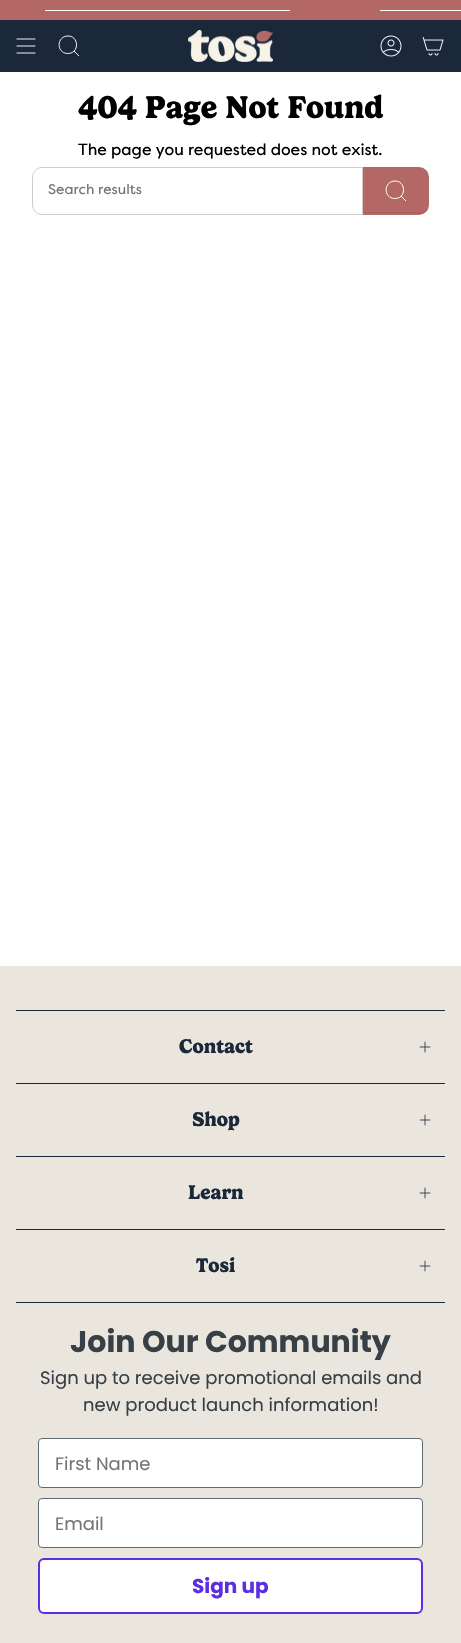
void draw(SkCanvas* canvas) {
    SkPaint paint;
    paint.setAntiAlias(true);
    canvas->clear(0xFFFFFFFF);
    paint.setColor(0xFFB46865);
    canvas->drawRect(SkRect::MakeXYWH(0, 0, 461, 20), paint);
    paint.setColor(0xFFFFFFFF);
    canvas->drawRect(SkRect::MakeXYWH(45, 10, 245, 1), paint);
    canvas->drawRect(SkRect::MakeXYWH(380, 10, 81, 1), paint);
    paint.setColor(0xFF1B283A);
    canvas->drawRect(SkRect::MakeXYWH(0, 20, 461, 52), paint);
    paint.setStyle(SkPaint::kStroke_Style);
    paint.setStrokeWidth(1);
    paint.setStrokeCap(SkPaint::kRound_Cap);
    paint.setStrokeJoin(SkPaint::kRound_Join);
    paint.setColor(0xFFF6F0F6);
    canvas->drawPath(SkPathBuilder().moveTo(17, 39).lineTo(35, 39).moveTo(17, 46).lineTo(35, 46).moveTo(17, 53).lineTo(35, 53).detach(), paint);
    paint.setStrokeCap(SkPaint::kButt_Cap);
    paint.setStrokeJoin(SkPaint::kMiter_Join);
    canvas->drawPath(SkPathBuilder().moveTo(68, 36).cubicTo(79.5f, 36, 79.5f, 54, 67.5f, 53.5f).cubicTo(56, 53, 56.5f, 36, 68, 36).close().moveTo(74, 51).lineTo(79, 56).detach(), paint);
    canvas->drawImageRect(SkImages::DeferredFromEncodedData(SkData::MakeFromFileName("img1.png")), SkRect::MakeXYWH(188, 30, 85, 32), SkSamplingOptions());
    canvas->drawImageRect(SkImages::DeferredFromEncodedData(SkData::MakeFromFileName("img2.png")), SkRect::MakeXYWH(380, 35, 22, 22), SkSamplingOptions());
    canvas->drawImageRect(SkImages::DeferredFromEncodedData(SkData::MakeFromFileName("img3.png")), SkRect::MakeXYWH(422, 37, 22, 19), SkSamplingOptions());
    SkFont font1(fontMgr->matchFamilyStyle("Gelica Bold", SkFontStyle::Bold()), 32);
    font1.setSubpixel(true);
    paint.setStyle(SkPaint::kFill_Style);
    paint.setColor(0xFF000000);
    canvas->drawString("404 Page Not Found", 78, 118, font1, paint);
    SkFont font2(fontMgr->matchFamilyStyle("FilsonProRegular", SkFontStyle::Normal()), 16);
    font2.setSubpixel(true);
    canvas->drawString("The page you requested does not exist.", 78, 155, font2, paint);
    paint.setStyle(SkPaint::kStroke_Style);
    paint.setColor(0xFFD1CDC4);
    canvas->drawPath(SkPathBuilder().moveTo(42, 167.5f).lineTo(362.5f, 167.5f).lineTo(362.5f, 214.5f).lineTo(42, 214.5f).cubicTo(37, 214.5f, 32.5f, 210, 32.5f, 205).lineTo(32.5f, 177).cubicTo(32.5f, 172, 37, 167.5f, 42, 167.5f).close().detach(), paint);
    SkFont font3(fontMgr->matchFamilyStyle("FilsonProRegular", SkFontStyle::Normal()), 14);
    font3.setSubpixel(true);
    paint.setStyle(SkPaint::kFill_Style);
    paint.setColor(0xFF757575);
    canvas->drawString("Search results", 48, 194, font3, paint);
    paint.setColor(0xFFB46865);
    canvas->drawPath(SkPathBuilder().moveTo(364, 168).lineTo(419, 168).cubicTo(424, 168, 428, 172, 428, 177).lineTo(428, 205).cubicTo(428, 210, 424, 214, 419, 214).lineTo(364, 214).close().detach(), paint);
    paint.setStyle(SkPaint::kStroke_Style);
    paint.setStrokeWidth(2);
    canvas->drawPath(SkPathBuilder().moveTo(364, 168).lineTo(419, 168).cubicTo(424, 168, 428, 172, 428, 177).lineTo(428, 205).cubicTo(428, 210, 424, 214, 419, 214).lineTo(364, 214).close().detach(), paint);
    paint.setStrokeWidth(1);
    paint.setColor(0xFFFFFFFF);
    canvas->drawPath(SkPathBuilder().moveTo(395, 181).cubicTo(406.5f, 181, 406.5f, 199, 394.5f, 198.5f).cubicTo(383, 198, 383.5f, 181, 395, 181).close().moveTo(401, 196).lineTo(406, 201).detach(), paint);
    canvas->save();
    canvas->clipPath(SkPathBuilder().moveTo(365, 169).lineTo(419, 169).cubicTo(423.5f, 169, 427, 172.5f, 427, 177).lineTo(427, 205).cubicTo(427, 209.5f, 423.5f, 213, 419, 213).lineTo(365, 213).close().detach(), true);
    paint.setStyle(SkPaint::kFill_Style);
    paint.setColor(0xFFAC5754);
    canvas->drawRect(SkRect::MakeXYWH(365, 212, 62, 1), paint);
    canvas->restore();
    paint.setColor(0xFFEAE6DD);
    canvas->drawRect(SkRect::MakeXYWH(0, 966, 461, 677), paint);
    paint.setColor(0xFF1B273A);
    canvas->drawRect(SkRect::MakeXYWH(16, 1010, 429, 1), paint);
    canvas->drawRect(SkRect::MakeXYWH(16, 1083, 429, 1), paint);
    SkFont font4(fontMgr->matchFamilyStyle("Gelica Bold", SkFontStyle::Bold()), 20);
    font4.setSubpixel(true);
    paint.setColor(0xFF1B283A);
    canvas->drawString("Contact", 179, 1053, font4, paint);
    canvas->drawImageRect(SkImages::DeferredFromEncodedData(SkData::MakeFromFileName("img4.png")), SkRect::MakeXYWH(419, 1041, 12, 12), SkSamplingOptions());
    paint.setColor(0xFF1B273A);
    canvas->drawRect(SkRect::MakeXYWH(16, 1156, 429, 1), paint);
    paint.setColor(0xFF1B283A);
    canvas->drawString("Shop", 192, 1126, font4, paint);
    canvas->drawImageRect(SkImages::DeferredFromEncodedData(SkData::MakeFromFileName("img4.png")), SkRect::MakeXYWH(419, 1114, 12, 12), SkSamplingOptions());
    paint.setColor(0xFF1B273A);
    canvas->drawRect(SkRect::MakeXYWH(16, 1229, 429, 1), paint);
    paint.setColor(0xFF1B283A);
    canvas->drawString("Learn", 188, 1199, font4, paint);
    canvas->drawImageRect(SkImages::DeferredFromEncodedData(SkData::MakeFromFileName("img4.png")), SkRect::MakeXYWH(419, 1187, 12, 12), SkSamplingOptions());
    paint.setColor(0xFF1B273A);
    canvas->drawRect(SkRect::MakeXYWH(16, 1302, 429, 1), paint);
    paint.setColor(0xFF1B283A);
    canvas->drawString("Tosi", 196, 1272, font4, paint);
    canvas->drawImageRect(SkImages::DeferredFromEncodedData(SkData::MakeFromFileName("img4.png")), SkRect::MakeXYWH(419, 1260, 12, 12), SkSamplingOptions());
    SkFont font5(fontMgr->matchFamilyStyle("Poppins", SkFontStyle::Bold()), 30);
    font5.setSubpixel(true);
    paint.setColor(0xFF373F47);
    canvas->drawString("Join Our Community", 70, 1352, font5, paint);
    SkFont font6(fontMgr->matchFamilyStyle("Poppins", SkFontStyle::Normal()), 18);
    font6.setSubpixel(true);
    canvas->drawString("Sign up to receive promotional emails and", 40, 1384, font6, paint);
    canvas->drawString("new product launch information!", 83, 1411, font6, paint);
    paint.setColor(0xFFFFFFFF);
    canvas->drawRoundRect(SkRect::MakeXYWH(38.5f, 1438.5f, 384, 49), 3.5f, 3.5f, paint);
    paint.setStyle(SkPaint::kStroke_Style);
    paint.setColor(0xFF606A72);
    canvas->drawRoundRect(SkRect::MakeXYWH(38.5f, 1438.5f, 384, 49), 3.5f, 3.5f, paint);
    paint.setStyle(SkPaint::kFill_Style);
    paint.setColor(0xFF757575);
    canvas->drawString("First Name", 55, 1470, font6, paint);
    paint.setColor(0xFFFFFFFF);
    canvas->drawRoundRect(SkRect::MakeXYWH(38.5f, 1498.5f, 384, 49), 3.5f, 3.5f, paint);
    paint.setStyle(SkPaint::kStroke_Style);
    paint.setColor(0xFF606A72);
    canvas->drawRoundRect(SkRect::MakeXYWH(38.5f, 1498.5f, 384, 49), 3.5f, 3.5f, paint);
    paint.setStyle(SkPaint::kFill_Style);
    paint.setColor(0xFF757575);
    canvas->drawString("Email", 55, 1530, font6, paint);
    paint.setColor(0xFFFFFFFF);
    canvas->drawRoundRect(SkRect::MakeXYWH(39, 1559, 383, 54), 5, 5, paint);
    paint.setStyle(SkPaint::kStroke_Style);
    paint.setStrokeWidth(2);
    paint.setColor(0xFF5C2DE3);
    canvas->drawRoundRect(SkRect::MakeXYWH(39, 1559, 383, 54), 5, 5, paint);
    SkFont font7(fontMgr->matchFamilyStyle("Poppins", SkFontStyle::Bold()), 20);
    font7.setSubpixel(true);
    paint.setStyle(SkPaint::kFill_Style);
    canvas->drawString("Sign up", 192, 1593, font7, paint);
}
